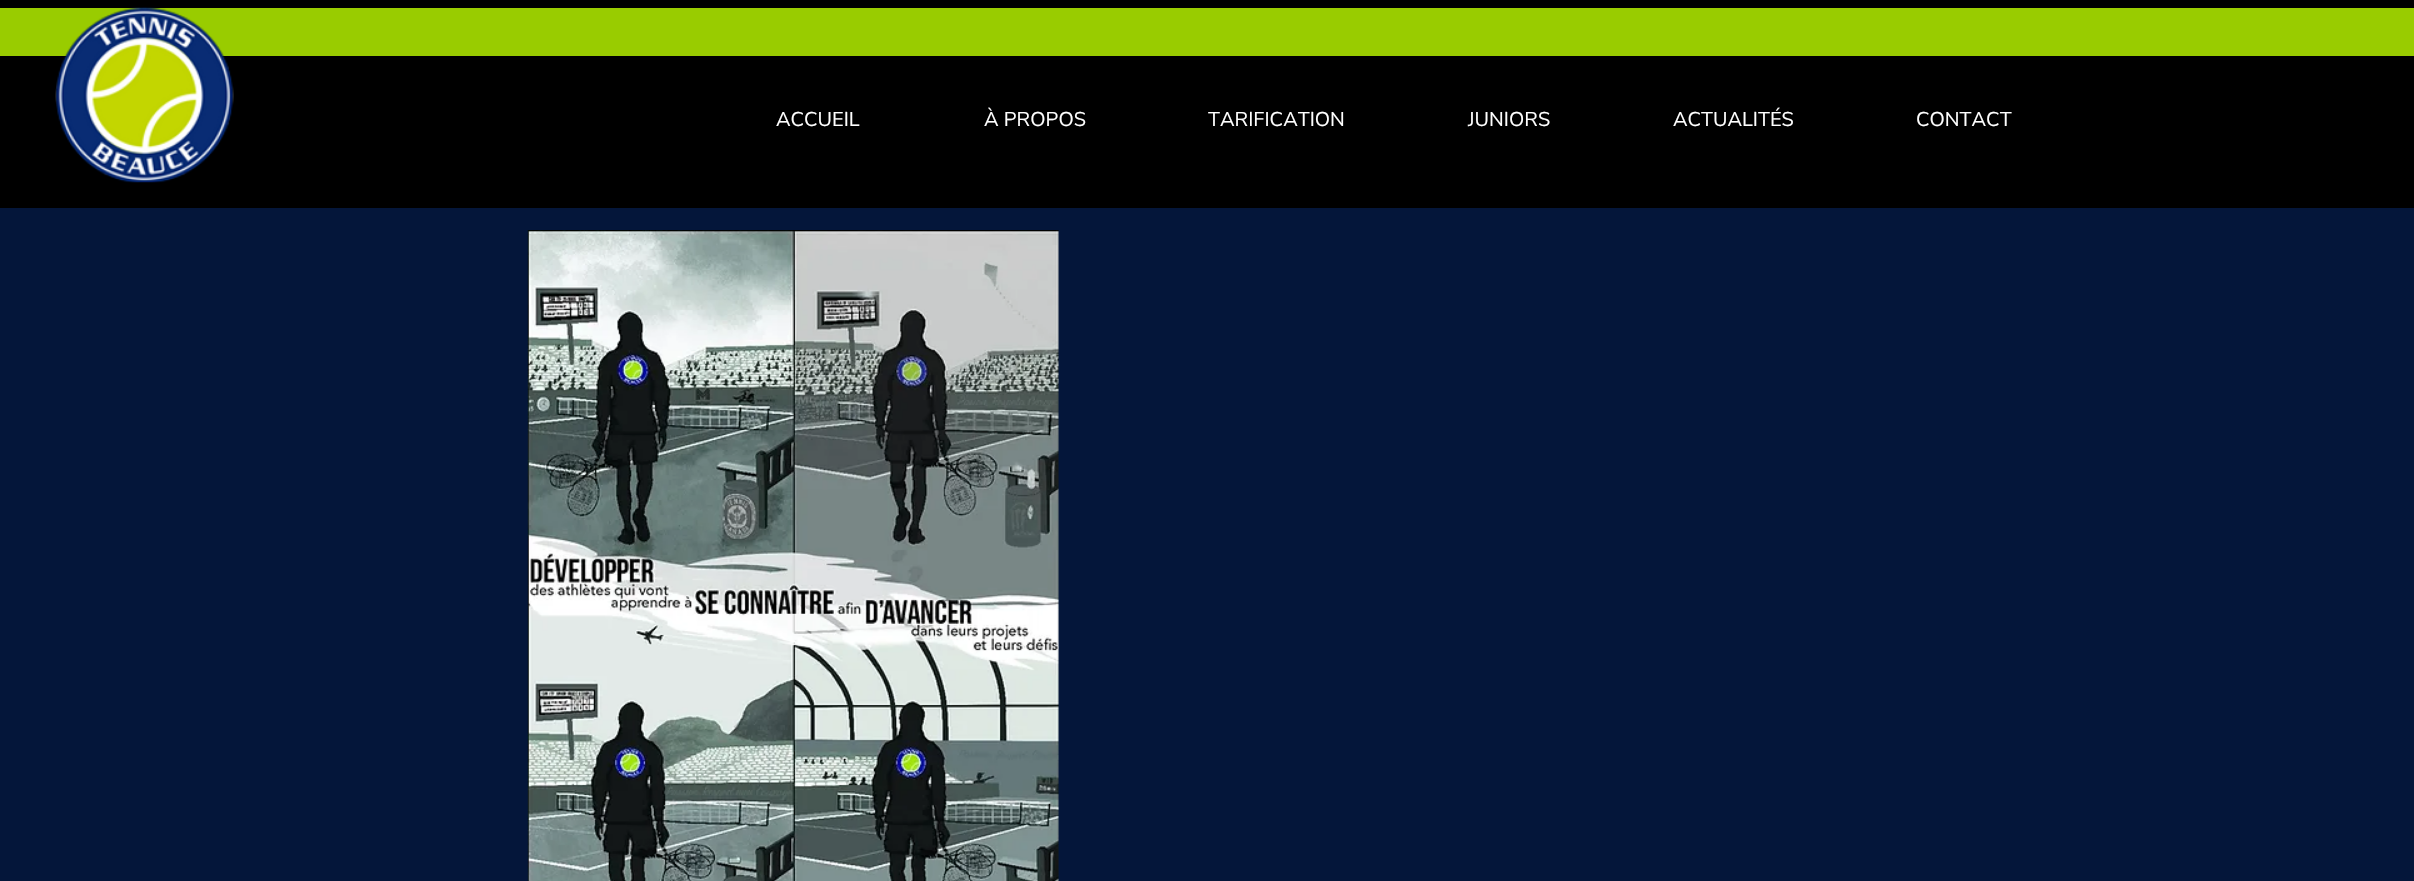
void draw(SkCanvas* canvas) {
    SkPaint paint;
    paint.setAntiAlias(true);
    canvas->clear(0xFF04163A);
    paint.setColor(0xFF000000);
    canvas->drawRect(SkRect::MakeXYWH(0, 0, 2414, 208), paint);
    paint.setColor(0xFF99CC00);
    canvas->drawRect(SkRect::MakeXYWH(0, 8, 2414, 48), paint);
    canvas->drawImageRect(SkImages::DeferredFromEncodedData(SkData::MakeFromFileName("img1.png")), SkRect::MakeXYWH(55, 7, 179, 176), SkSamplingOptions());
    SkFont font1(fontMgr->matchFamilyStyle("Nunito Sans", SkFontStyle::Normal()), 20);
    font1.setSubpixel(true);
    paint.setColor(0xFFFFFFFF);
    canvas->drawString("ACCUEIL", 776, 126, font1, paint);
    canvas->drawString("À PROPOS", 984, 126, font1, paint);
    canvas->drawString("TARIFICATION", 1208, 126, font1, paint);
    canvas->drawString("JUNIORS", 1468, 126, font1, paint);
    canvas->drawString("ACTUALITÉS", 1673, 126, font1, paint);
    canvas->drawString("CONTACT", 1916, 126, font1, paint);
    canvas->drawImageRect(SkImages::DeferredFromEncodedData(SkData::MakeFromFileName("img2.png")), SkRect::MakeXYWH(527, 230, 532, 651), SkSamplingOptions());
}
